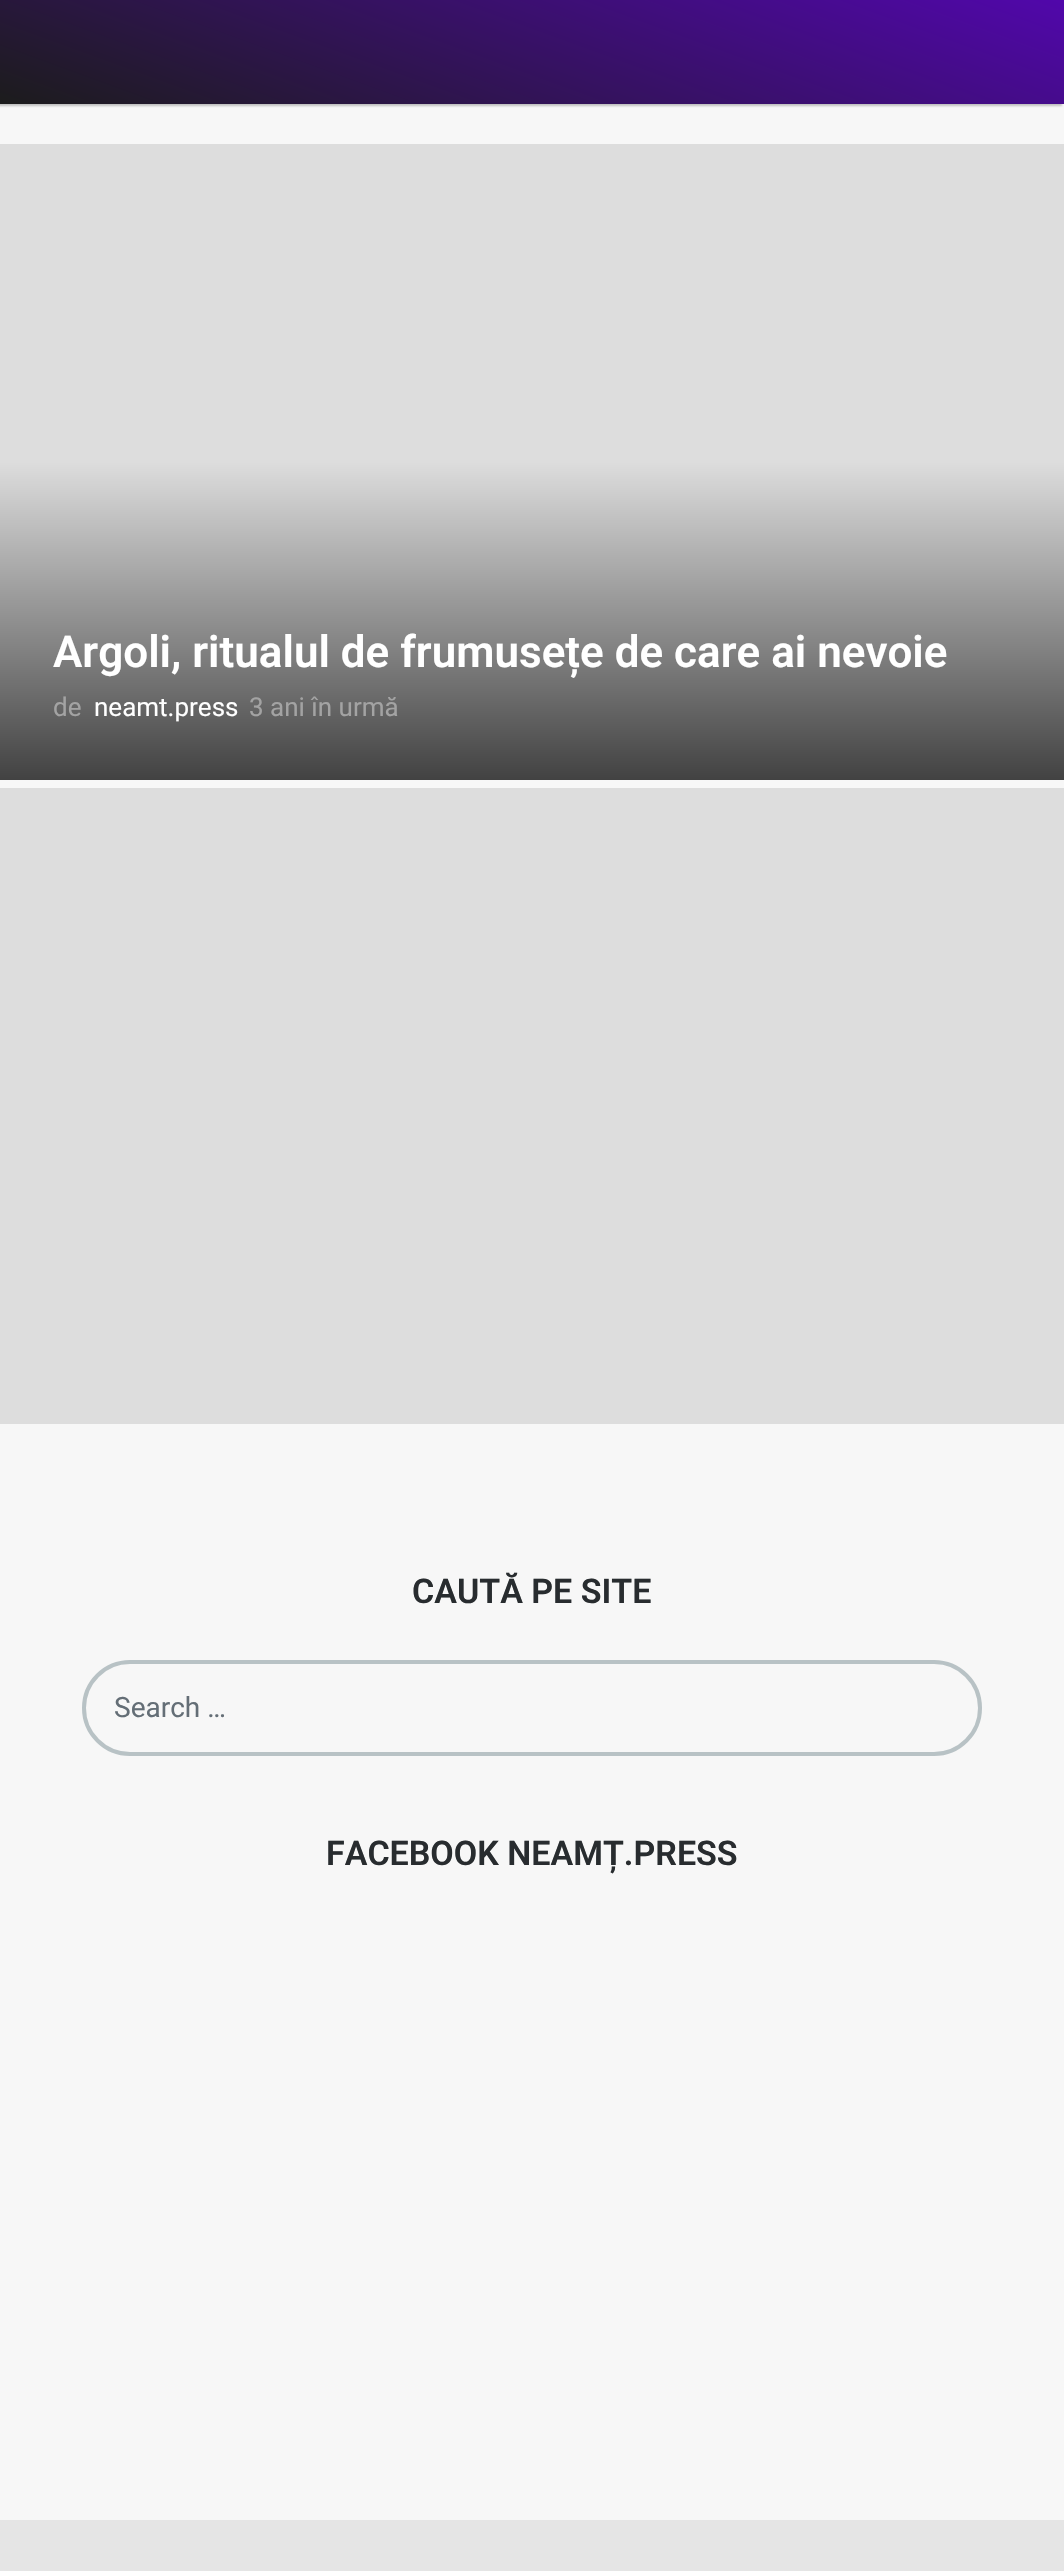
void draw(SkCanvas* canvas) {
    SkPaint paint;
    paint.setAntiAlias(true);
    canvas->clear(0xFFF7F7F7);
    paint.setColor(0x452A2A2A);
    paint.setMaskFilter(SkMaskFilter::MakeBlur(kNormal_SkBlurStyle, 1));
    canvas->drawRect(SkRect::MakeXYWH(-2, 2, 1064, 104), paint);
    paint.setMaskFilter(nullptr);
    {
        const SkColor colors[] = {0xFF1C1C1C, 0xFF5107AB};
        const float stops[] = {0, 1};
        const SkPoint ends[] = {{453, 269}, {611, -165}};
        paint.setShader(SkGradientShader::MakeLinear(ends, colors, stops, 2, SkTileMode::kClamp));
        paint.setAlpha(255);
    }
    canvas->drawRect(SkRect::MakeXYWH(0, 0, 1064, 104), paint);
    paint.setShader(nullptr);
    paint.setColor(0xFFDDDDDD);
    canvas->drawRect(SkRect::MakeXYWH(0, 144, 1064, 318), paint);
    {
        const SkColor colors[] = {0xFFDDDDDD, 0xFF424242};
        const float stops[] = {0, 1};
        const SkPoint ends[] = {{532, 462}, {532, 780}};
        paint.setShader(SkGradientShader::MakeLinear(ends, colors, stops, 2, SkTileMode::kClamp));
        paint.setAlpha(255);
    }
    canvas->drawRect(SkRect::MakeXYWH(0, 462, 1064, 318), paint);
    SkFont font1(fontMgr->matchFamilyStyle("Roboto", SkFontStyle(600, SkFontStyle::kNormal_Width, SkFontStyle::kUpright_Slant)), 44);
    font1.setSubpixel(true);
    paint.setShader(nullptr);
    paint.setColor(0xFFFFFFFF);
    canvas->drawString("Argoli, ritualul de frumusețe de care ai nevoie", 53, 667, font1, paint);
    SkFont font2(fontMgr->matchFamilyStyle("Roboto", SkFontStyle::Normal()), 26);
    font2.setSubpixel(true);
    paint.setColor(0xFFA3A3A3);
    canvas->drawString("de", 53, 716, font2, paint);
    paint.setColor(0xFFFFFFFF);
    canvas->drawString("neamt.press", 94, 716, font2, paint);
    paint.setColor(0xFFA3A3A3);
    canvas->drawString("3 ani în urmă", 249, 716, font2, paint);
    paint.setColor(0xFFDDDDDD);
    canvas->drawRect(SkRect::MakeXYWH(0, 788, 1064, 636), paint);
    SkFont font3(fontMgr->matchFamilyStyle("Roboto", SkFontStyle(600, SkFontStyle::kNormal_Width, SkFontStyle::kUpright_Slant)), 34);
    font3.setSubpixel(true);
    paint.setColor(0xFF282C2F);
    canvas->drawString("CAUTĂ PE SITE", 412, 1603, font3, paint);
    paint.setStyle(SkPaint::kStroke_Style);
    paint.setStrokeWidth(4);
    paint.setColor(0xFFB8C2C5);
    canvas->drawRoundRect(SkRect::MakeXYWH(84, 1662, 896, 92), 46, 46, paint);
    SkFont font4(fontMgr->matchFamilyStyle("Roboto", SkFontStyle::Normal()), 28);
    font4.setSubpixel(true);
    paint.setStyle(SkPaint::kFill_Style);
    paint.setColor(0xFF646E76);
    canvas->drawString("Search …", 114, 1717, font4, paint);
    paint.setColor(0xFF282C2F);
    canvas->drawString("FACEBOOK NEAMȚ.PRESS", 326, 1865, font3, paint);
    paint.setColor(0xFFE5E5E5);
    canvas->drawRect(SkRect::MakeXYWH(0, 2520, 1064, 51), paint);
}
